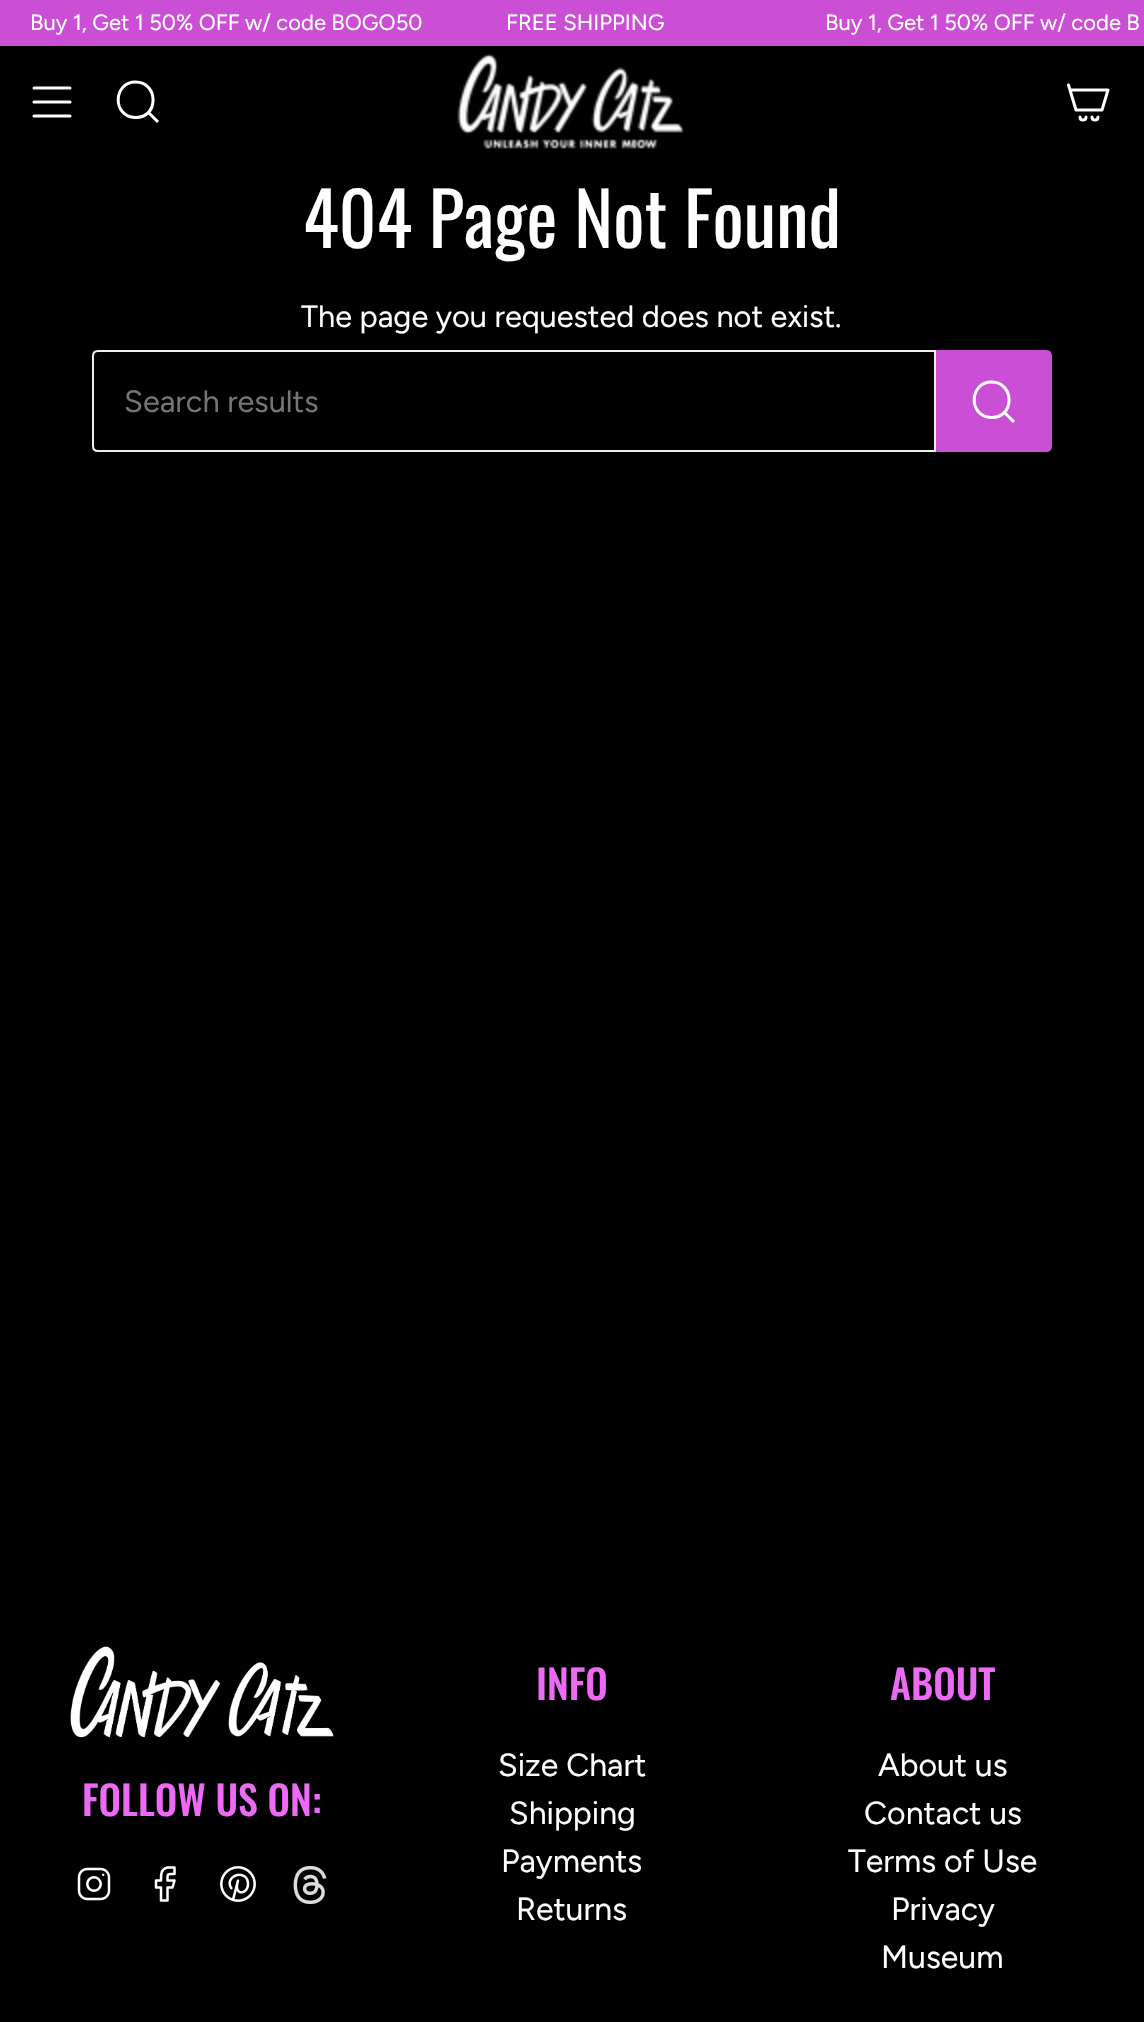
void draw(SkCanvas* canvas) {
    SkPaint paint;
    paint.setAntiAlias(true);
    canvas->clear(0xFF000000);
    paint.setColor(0xFFCB4FD4);
    canvas->drawRect(SkRect::MakeXYWH(0, 0, 1144, 46), paint);
    SkFont font1(fontMgr->matchFamilyStyle("Figtree", SkFontStyle::Normal()), 22);
    font1.setSubpixel(true);
    paint.setColor(0xFFFFFFFF);
    canvas->drawString("Buy 1, Get 1 50% OFF w/ code BOGO50", 30, 30, font1, paint);
    canvas->drawString("FREE SHIPPING", 506, 30, font1, paint);
    canvas->drawString("Buy 1, Get 1 50% OFF w/ code B", 825, 30, font1, paint);
    paint.setStyle(SkPaint::kStroke_Style);
    paint.setStrokeWidth(3);
    paint.setStrokeCap(SkPaint::kRound_Cap);
    paint.setStrokeJoin(SkPaint::kRound_Join);
    canvas->drawPath(SkPathBuilder().moveTo(34, 88).lineTo(70, 88).moveTo(34, 102).lineTo(70, 102).moveTo(34, 116).lineTo(70, 116).detach(), paint);
    paint.setStrokeCap(SkPaint::kButt_Cap);
    paint.setStrokeJoin(SkPaint::kMiter_Join);
    canvas->drawPath(SkPathBuilder().moveTo(135.5f, 82).cubicTo(159, 82, 159, 118.5f, 135, 117.5f).cubicTo(112, 116.5f, 113, 82, 135.5f, 82).close().moveTo(148, 112).lineTo(158, 122).detach(), paint);
    canvas->drawImageRect(SkImages::DeferredFromEncodedData(SkData::MakeFromFileName("img1.png")), SkRect::MakeXYWH(457, 54, 228, 95), SkSamplingOptions());
    paint.setStrokeCap(SkPaint::kRound_Cap);
    paint.setStrokeJoin(SkPaint::kRound_Join);
    canvas->drawPath(SkPathBuilder().moveTo(1070, 90).lineTo(1108, 90).lineTo(1102, 110).lineTo(1076, 110).close().moveTo(1070, 90).lineTo(1068.5f, 85).moveTo(1086, 117).cubicTo(1086, 121, 1080, 121, 1080, 117).moveTo(1098, 117).cubicTo(1098, 121, 1092, 121, 1092, 117).detach(), paint);
    SkFont font2(fontMgr->matchFamilyStyle("Oswald", SkFontStyle::Normal()), 73.5f);
    font2.setSubpixel(true);
    paint.setStyle(SkPaint::kFill_Style);
    canvas->drawString("404 Page Not Found", 303, 248, font2, paint);
    SkFont font3(fontMgr->matchFamilyStyle("Figtree", SkFontStyle::Normal()), 30.75f);
    font3.setSubpixel(true);
    canvas->drawString("The page you requested does not exist.", 301, 327, font3, paint);
    paint.setStyle(SkPaint::kStroke_Style);
    paint.setStrokeWidth(2);
    paint.setStrokeCap(SkPaint::kButt_Cap);
    paint.setStrokeJoin(SkPaint::kMiter_Join);
    paint.setColor(0xFFF0F0F0);
    canvas->drawPath(SkPathBuilder().moveTo(98, 351).lineTo(935, 351).lineTo(935, 451).lineTo(98, 451).cubicTo(95, 451, 93, 449, 93, 446).lineTo(93, 356).cubicTo(93, 353, 95, 351, 98, 351).close().detach(), paint);
    paint.setStyle(SkPaint::kFill_Style);
    paint.setColor(0xFF757575);
    canvas->drawString("Search results", 124, 412, font3, paint);
    paint.setColor(0xFFCB4FD4);
    canvas->drawPath(SkPathBuilder().moveTo(937, 351).lineTo(1046, 351).cubicTo(1049, 351, 1051, 353, 1051, 356).lineTo(1051, 446).cubicTo(1051, 449, 1049, 451, 1046, 451).lineTo(937, 451).close().detach(), paint);
    paint.setStyle(SkPaint::kStroke_Style);
    canvas->drawPath(SkPathBuilder().moveTo(937, 351).lineTo(1046, 351).cubicTo(1049, 351, 1051, 353, 1051, 356).lineTo(1051, 446).cubicTo(1051, 449, 1049, 451, 1046, 451).lineTo(937, 451).close().detach(), paint);
    paint.setStrokeWidth(3);
    paint.setColor(0xFFFFFFFF);
    canvas->drawPath(SkPathBuilder().moveTo(991.5f, 382).cubicTo(1015, 382, 1015, 418.5f, 991, 417.5f).cubicTo(968, 416.5f, 969, 382, 991.5f, 382).close().moveTo(1004, 412).lineTo(1014, 422).detach(), paint);
    canvas->drawImageRect(SkImages::DeferredFromEncodedData(SkData::MakeFromFileName("img2.png")), SkRect::MakeXYWH(70, 1646, 264, 92), SkSamplingOptions());
    SkFont font4(fontMgr->matchFamilyStyle("Oswald", SkFontStyle(500, SkFontStyle::kNormal_Width, SkFontStyle::kUpright_Slant)), 40);
    font4.setSubpixel(true);
    paint.setStyle(SkPaint::kFill_Style);
    paint.setColor(0xFFEC6AF5);
    canvas->drawString("FOLLOW US ON:", 82, 1816, font4, paint);
    canvas->drawImageRect(SkImages::DeferredFromEncodedData(SkData::MakeFromFileName("img3.png")), SkRect::MakeXYWH(77, 1867, 34, 34), SkSamplingOptions());
    paint.setStyle(SkPaint::kStroke_Style);
    paint.setStrokeWidth(2.5f);
    paint.setStrokeCap(SkPaint::kRound_Cap);
    paint.setStrokeJoin(SkPaint::kRound_Join);
    paint.setColor(0xFFFFFFFF);
    canvas->drawPath(SkPathBuilder().moveTo(174.5f, 1867.5f).lineTo(167.5f, 1867.5f).cubicTo(160.5f, 1869, 161, 1875, 161, 1880.5f).lineTo(156, 1880.5f).lineTo(156, 1887.5f).lineTo(161, 1887.5f).lineTo(161, 1900.5f).lineTo(167.5f, 1900.5f).lineTo(167.5f, 1887.5f).lineTo(172.5f, 1887.5f).lineTo(174.5f, 1880.5f).lineTo(167.5f, 1880.5f).cubicTo(167.5f, 1873, 167, 1874, 174.5f, 1874).close().detach(), paint);
    canvas->drawImageRect(SkImages::DeferredFromEncodedData(SkData::MakeFromFileName("img4.png")), SkRect::MakeXYWH(220, 1866, 36, 36), SkSamplingOptions());
    canvas->drawImageRect(SkImages::DeferredFromEncodedData(SkData::MakeFromFileName("img5.png")), SkRect::MakeXYWH(293, 1866, 34, 38), SkSamplingOptions());
    paint.setStyle(SkPaint::kFill_Style);
    paint.setColor(0xFFEC6AF5);
    canvas->drawString("INFO", 536, 1700, font4, paint);
    SkFont font5(fontMgr->matchFamilyStyle("Figtree", SkFontStyle::Normal()), 32);
    font5.setSubpixel(true);
    paint.setColor(0xFFFFFFFF);
    canvas->drawString("Size Chart", 498, 1776, font5, paint);
    canvas->drawString("Shipping", 509, 1824, font5, paint);
    canvas->drawString("Payments", 501, 1872, font5, paint);
    canvas->drawString("Returns", 516, 1920, font5, paint);
    paint.setColor(0xFFEC6AF5);
    canvas->drawString("ABOUT", 890, 1700, font4, paint);
    paint.setColor(0xFFFFFFFF);
    canvas->drawString("About us", 878, 1776, font5, paint);
    canvas->drawString("Contact us", 864, 1824, font5, paint);
    canvas->drawString("Terms of Use", 848, 1872, font5, paint);
    canvas->drawString("Privacy", 891, 1920, font5, paint);
    canvas->drawString("Museum", 881, 1968, font5, paint);
}
